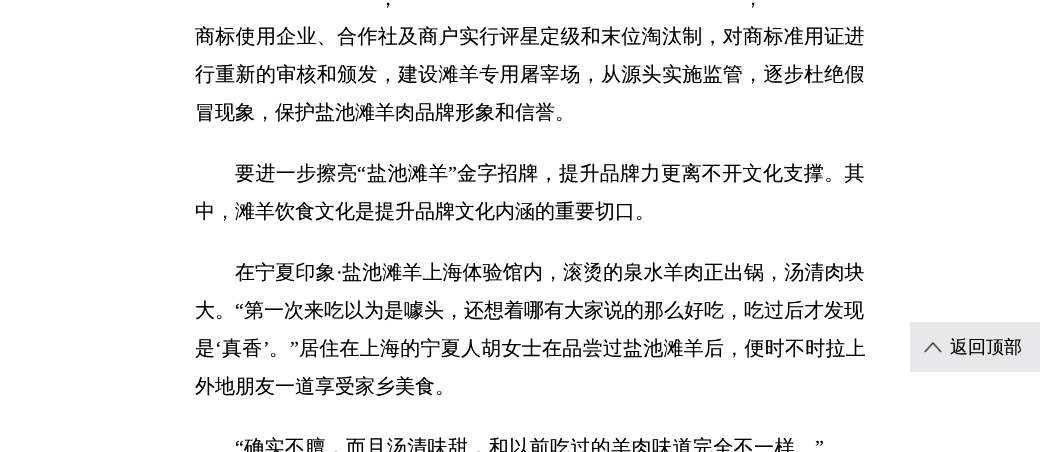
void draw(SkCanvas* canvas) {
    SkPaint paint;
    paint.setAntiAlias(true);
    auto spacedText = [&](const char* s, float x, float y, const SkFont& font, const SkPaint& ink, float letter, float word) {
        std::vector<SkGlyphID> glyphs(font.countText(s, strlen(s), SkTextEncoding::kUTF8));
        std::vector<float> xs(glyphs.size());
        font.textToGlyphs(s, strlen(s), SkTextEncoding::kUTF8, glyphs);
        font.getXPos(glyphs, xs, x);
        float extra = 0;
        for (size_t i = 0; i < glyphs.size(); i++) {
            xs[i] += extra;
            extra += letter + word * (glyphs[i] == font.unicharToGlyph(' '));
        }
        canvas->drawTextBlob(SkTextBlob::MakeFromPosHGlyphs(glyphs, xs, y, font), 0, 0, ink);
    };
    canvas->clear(0xFFFFFFFF);
    SkFont font1(fontMgr->matchFamilyStyle("WenQuanYi Zen Hei", SkFontStyle(500, SkFontStyle::kNormal_Width, SkFontStyle::kUpright_Slant)), 20);
    font1.setSubpixel(true);
    paint.setColor(0xFF000000);
    canvas->drawString("，", 378, 5, font1, paint);
    canvas->drawString("，", 743, 5, font1, paint);
    spacedText("商标使用企业、合作社及商户实行评星定级和末位淘汰制，对商标准用证进", 195, 43, font1, paint, 0.3f, 0);
    spacedText("行重新的审核和颁发，建设滩羊专用屠宰场，从源头实施监管，逐步杜绝假", 195, 81, font1, paint, 0.3f, 0);
    canvas->drawString("冒现象，保护盐池滩羊肉品牌形象和信誉。", 195, 119, font1, paint);
    spacedText("要进一步擦亮", 235, 180, font1, paint, 0.4f, 0);
    SkFont font2(fontMgr->matchFamilyStyle("Liberation Serif", SkFontStyle::Normal()), 20);
    font2.setSubpixel(true);
    spacedText("“", 357, 180, font2, paint, 0.4f, 0);
    spacedText("盐池滩羊", 367, 180, font1, paint, 0.4f, 0);
    spacedText("”", 448, 180, font2, paint, 0.4f, 0);
    spacedText("金字招牌，提升品牌力更离不开文化支撑。其", 457, 180, font1, paint, 0.4f, 0);
    canvas->drawString("中，滩羊饮食文化是提升品牌文化内涵的重要切口。", 195, 218, font1, paint);
    spacedText("在宁夏印象", 235, 279, font1, paint, 0.1f, 0);
    spacedText("·", 336, 279, font2, paint, 0.1f, 0);
    spacedText("盐池滩羊上海体验馆内，滚烫的泉水羊肉正出锅，汤清肉块", 342, 279, font1, paint, 0.1f, 0);
    canvas->drawString("大。", 195, 317, font1, paint);
    canvas->drawString("“", 235, 317, font2, paint);
    canvas->drawString("第一次来吃以为是噱头，还想着哪有大家说的那么好吃，吃过后才发现", 244, 317, font1, paint);
    spacedText("是", 195, 355, font1, paint, 0.25f, 0);
    spacedText("‘", 215, 355, font2, paint, 0.25f, 0);
    spacedText("真香", 222, 355, font1, paint, 0.25f, 0);
    spacedText("’", 263, 355, font2, paint, 0.25f, 0);
    spacedText("”", 290, 355, font2, paint, 0.25f, 0);
    spacedText("居住在上海的宁夏人胡女士在品尝过盐池滩羊后，便时不时拉上", 299, 355, font1, paint, 0.25f, 0);
    spacedText("。", 269, 355, font1, paint, 0.25f, 0);
    canvas->drawString("外地朋友一道享受家乡美食。", 195, 393, font1, paint);
    spacedText("“", 235, 454, font2, paint, 0.4f, 0);
    spacedText("确实不膻，而且汤清味甜，和以前吃过的羊肉味道完全不一样", 244, 454, font1, paint, 0.4f, 0);
    spacedText("”", 815, 454, font2, paint, 0.4f, 0);
    canvas->drawImageRect(SkImages::DeferredFromEncodedData(SkData::MakeFromFileName("img1.png")), SkRect::MakeXYWH(910, 322, 130, 50), SkSamplingOptions());
    SkFont font3(fontMgr->matchFamilyStyle("WenQuanYi Zen Hei", SkFontStyle(500, SkFontStyle::kNormal_Width, SkFontStyle::kUpright_Slant)), 18);
    font3.setSubpixel(true);
    canvas->drawString("返回顶部", 950, 353, font3, paint);
}
